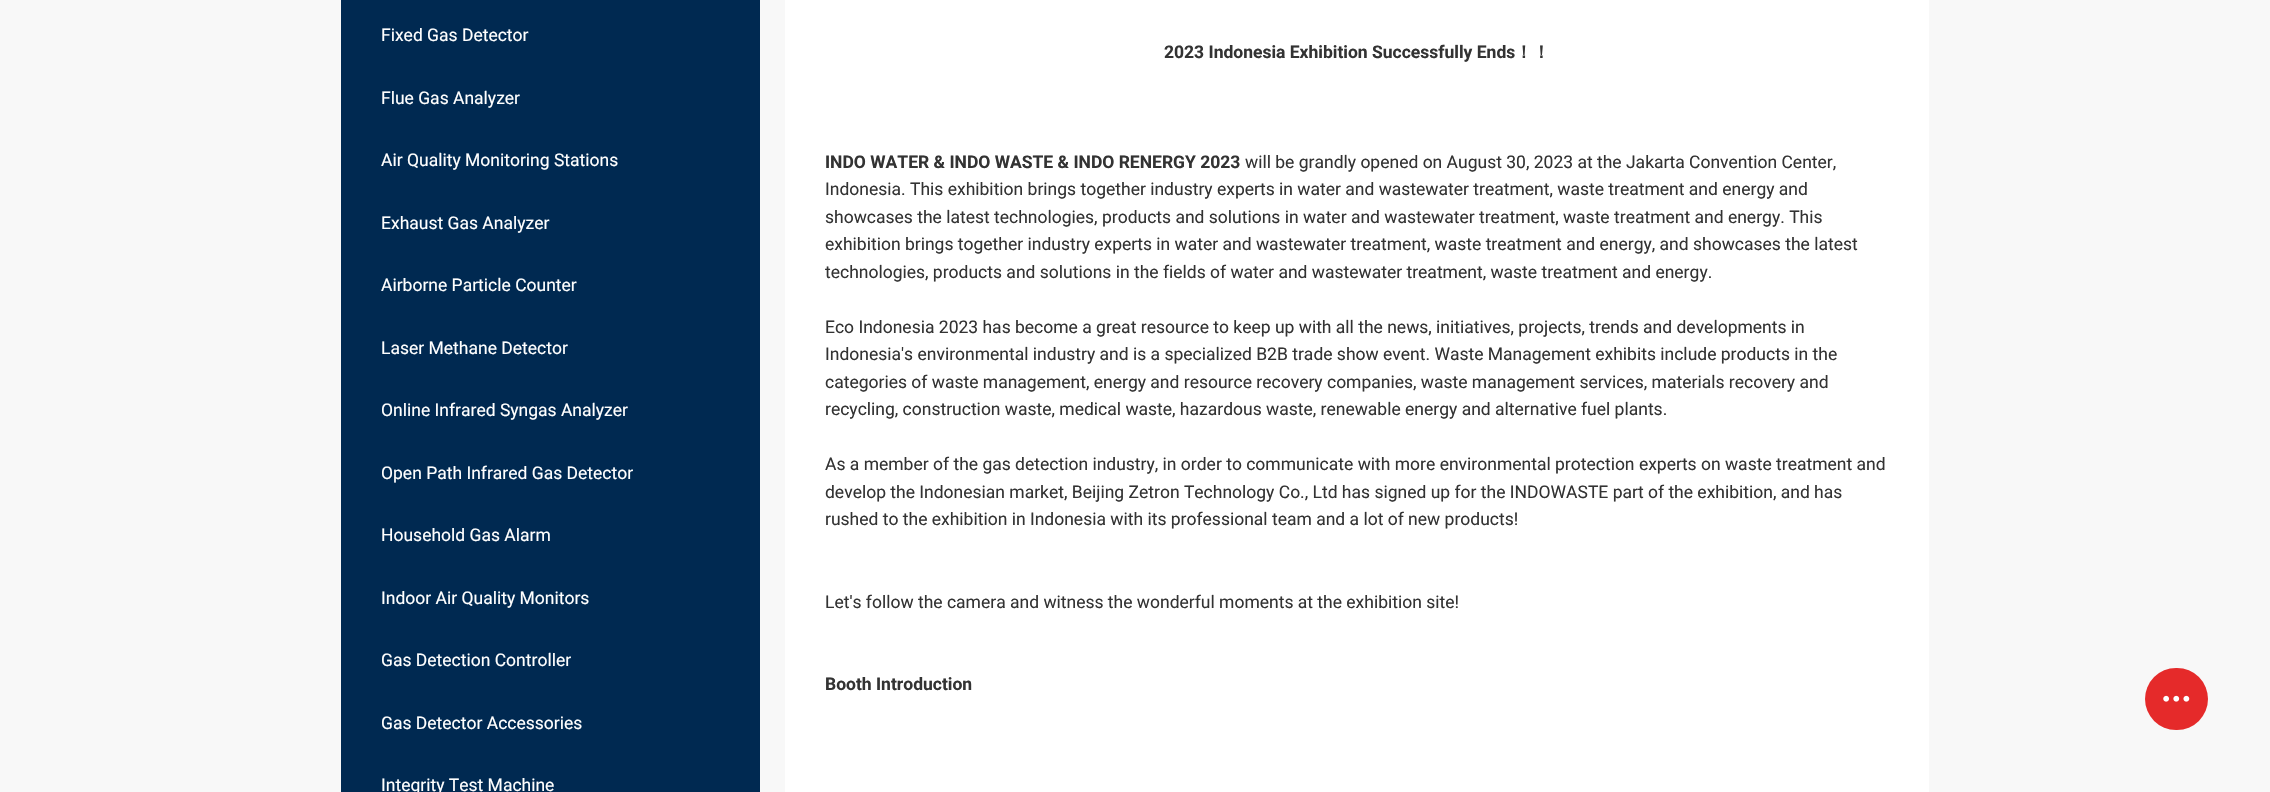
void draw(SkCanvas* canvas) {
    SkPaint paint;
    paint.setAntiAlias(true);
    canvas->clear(0xFFF8F8F8);
    paint.setColor(0xFF002951);
    canvas->drawRect(SkRect::MakeXYWH(341, 0, 419, 792), paint);
    SkFont font1(fontMgr->matchFamilyStyle("Roboto", SkFontStyle::Normal()), 17.5f);
    font1.setSubpixel(true);
    paint.setColor(0xFFFFFFFF);
    canvas->drawString("Fixed Gas Detector", 381, 41, font1, paint);
    canvas->drawString("Flue Gas Analyzer", 381, 104, font1, paint);
    canvas->drawString("Air Quality Monitoring Stations", 381, 166, font1, paint);
    canvas->drawString("Exhaust Gas Analyzer", 381, 229, font1, paint);
    canvas->drawString("Airborne Particle Counter", 381, 291, font1, paint);
    canvas->drawString("Laser Methane Detector", 381, 354, font1, paint);
    canvas->drawString("Online Infrared Syngas Analyzer", 381, 416, font1, paint);
    canvas->drawString("Open Path Infrared Gas Detector", 381, 479, font1, paint);
    canvas->drawString("Household Gas Alarm", 381, 541, font1, paint);
    canvas->drawString("Indoor Air Quality Monitors", 381, 604, font1, paint);
    canvas->drawString("Gas Detection Controller", 381, 666, font1, paint);
    canvas->drawString("Gas Detector Accessories", 381, 729, font1, paint);
    canvas->drawString("Integrity Test Machine", 381, 791, font1, paint);
    canvas->drawRect(SkRect::MakeXYWH(785, 0, 1144, 792), paint);
    SkFont font2(fontMgr->matchFamilyStyle("Roboto", SkFontStyle::Bold()), 17.5f);
    font2.setSubpixel(true);
    paint.setColor(0xFF333333);
    canvas->drawString("2023 Indonesia Exhibition Successfully Ends", 1164, 58, font2, paint);
    SkFont font3(fontMgr->matchFamilyStyle("WenQuanYi Zen Hei", SkFontStyle::Bold()), 17.5f);
    font3.setSubpixel(true);
    canvas->drawString("！！", 1515, 58, font3, paint);
    canvas->drawString("INDO WATER & INDO WASTE & INDO RENERGY 2023", 825, 168, font2, paint);
    canvas->drawString("will be grandly opened on August 30, 2023 at the Jakarta Convention Center,", 1245, 168, font1, paint);
    canvas->drawString("Indonesia. This exhibition brings together industry experts in water and wastewater treatment, waste treatment and energy and", 825, 195, font1, paint);
    canvas->drawString("showcases the latest technologies, products and solutions in water and wastewater treatment, waste treatment and energy. This", 825, 223, font1, paint);
    canvas->drawString("exhibition brings together industry experts in water and wastewater treatment, waste treatment and energy, and showcases the latest", 825, 250, font1, paint);
    canvas->drawString("technologies, products and solutions in the fields of water and wastewater treatment, waste treatment and energy.", 825, 278, font1, paint);
    canvas->drawString("Eco Indonesia 2023 has become a great resource to keep up with all the news, initiatives, projects, trends and developments in", 825, 333, font1, paint);
    canvas->drawString("Indonesia's environmental industry and is a specialized B2B trade show event. Waste Management exhibits include products in the", 825, 360, font1, paint);
    canvas->drawString("categories of waste management, energy and resource recovery companies, waste management services, materials recovery and", 825, 388, font1, paint);
    canvas->drawString("recycling, construction waste, medical waste, hazardous waste, renewable energy and alternative fuel plants.", 825, 415, font1, paint);
    canvas->drawString("As a member of the gas detection industry, in order to communicate with more environmental protection experts on waste treatment and", 825, 470, font1, paint);
    canvas->drawString("develop the Indonesian market, Beijing Zetron Technology Co., Ltd has signed up for the INDOWASTE part of the exhibition, and has", 825, 498, font1, paint);
    canvas->drawString("rushed to the exhibition in Indonesia with its professional team and a lot of new products!", 825, 525, font1, paint);
    canvas->drawString("Let's follow the camera and witness the wonderful moments at the exhibition site!", 825, 608, font1, paint);
    canvas->drawString("Booth Introduction", 825, 690, font2, paint);
    paint.setColor(0xFFE52A2A);
    canvas->drawRoundRect(SkRect::MakeXYWH(2145, 668, 63, 62), 31, 31, paint);
    canvas->drawImageRect(SkImages::DeferredFromEncodedData(SkData::MakeFromFileName("img1.png")), SkRect::MakeXYWH(2163, 695, 27, 7), SkSamplingOptions());
}
